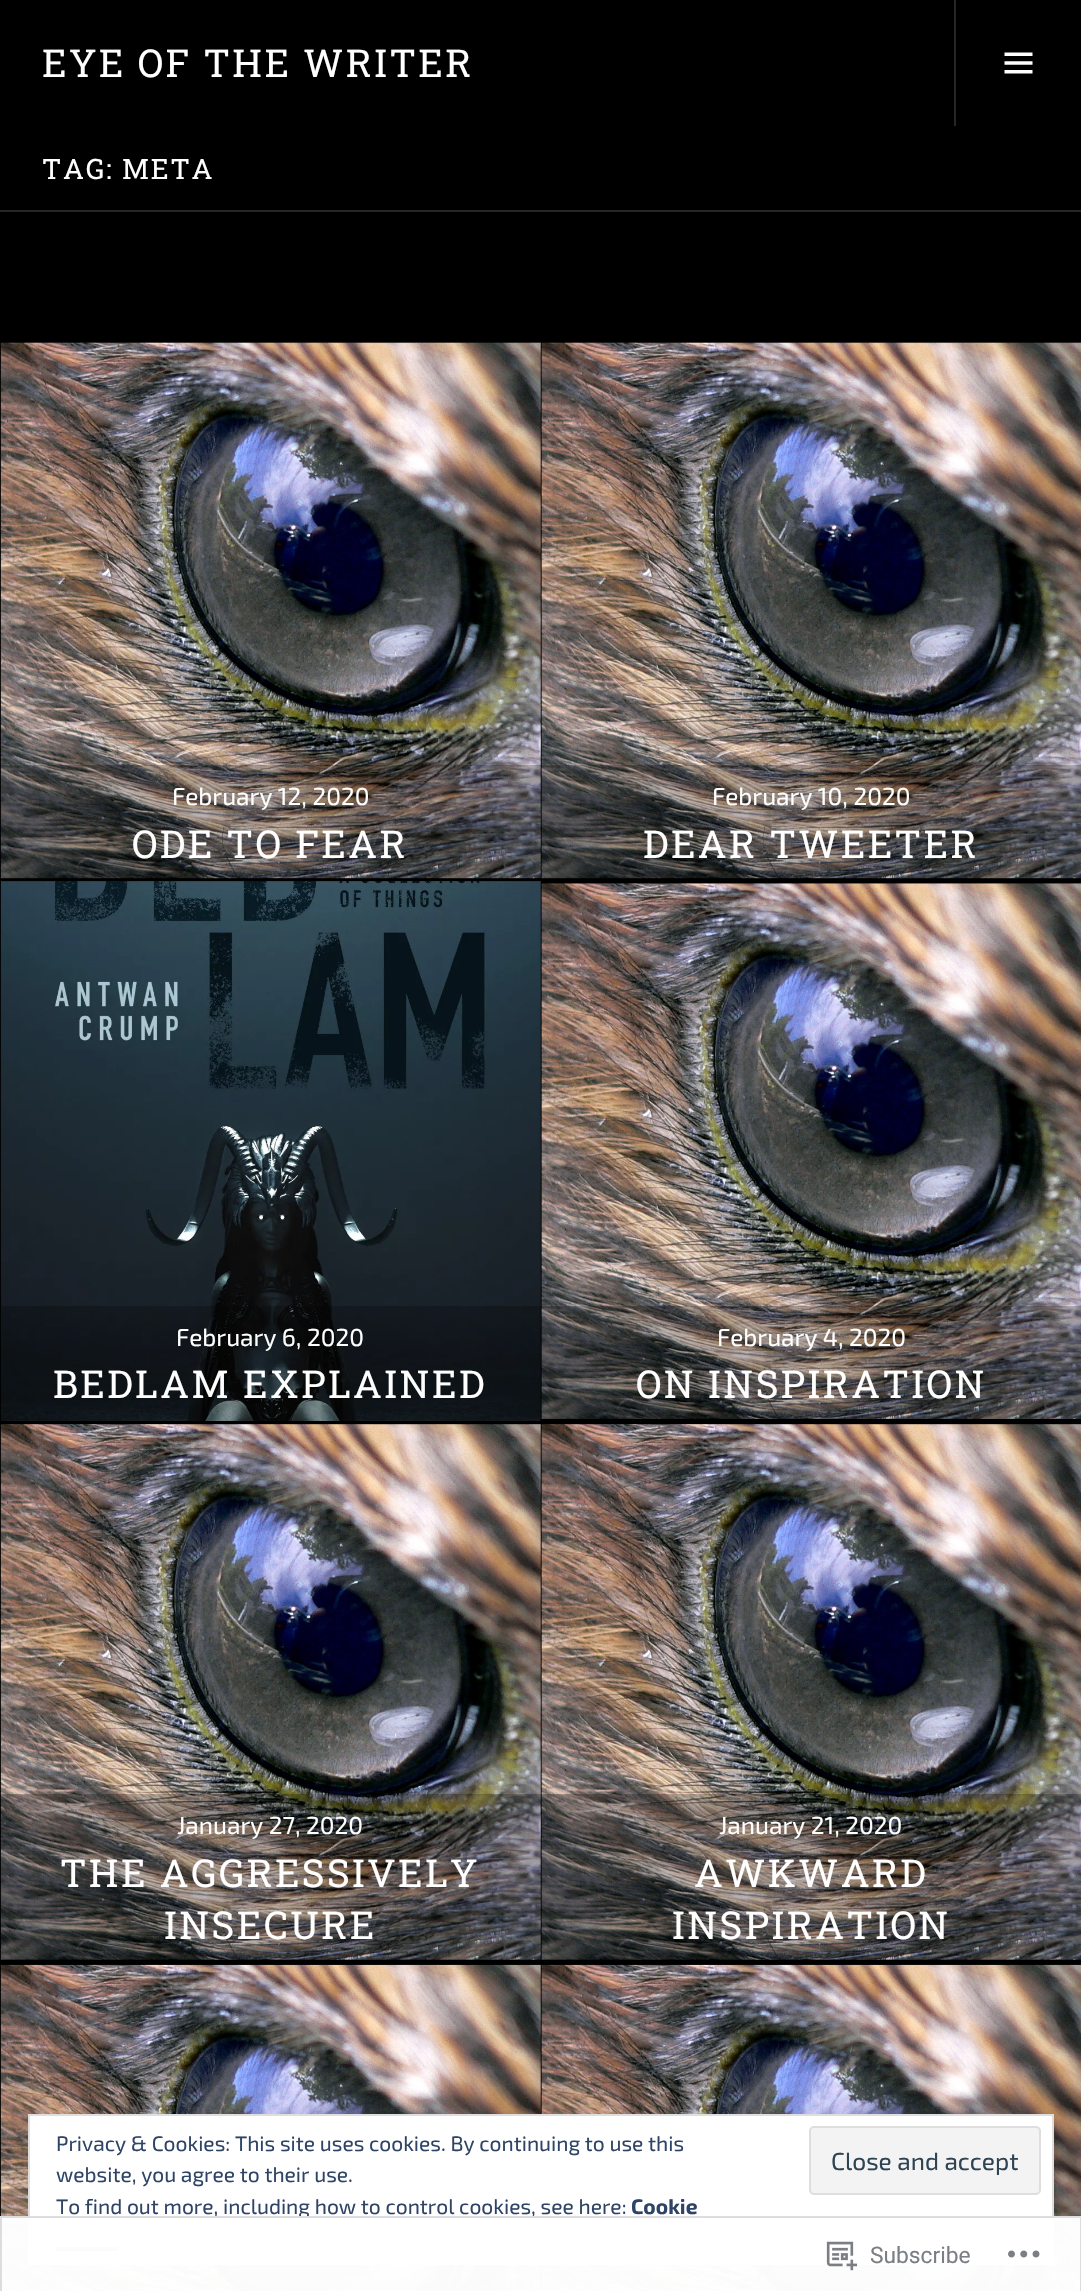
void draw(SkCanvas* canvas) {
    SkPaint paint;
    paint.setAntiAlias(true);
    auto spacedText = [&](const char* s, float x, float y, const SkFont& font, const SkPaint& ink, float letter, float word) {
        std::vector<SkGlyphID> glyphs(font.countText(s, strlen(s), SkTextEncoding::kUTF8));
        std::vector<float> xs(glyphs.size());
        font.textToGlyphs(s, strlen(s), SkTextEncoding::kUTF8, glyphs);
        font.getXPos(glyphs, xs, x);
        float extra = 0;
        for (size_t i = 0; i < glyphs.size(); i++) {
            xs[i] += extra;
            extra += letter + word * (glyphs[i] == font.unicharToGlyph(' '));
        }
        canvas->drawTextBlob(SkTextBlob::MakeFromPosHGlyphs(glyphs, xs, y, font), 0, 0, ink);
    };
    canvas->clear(0xFF000000);
    SkFont font1(fontMgr->matchFamilyStyle("Roboto Slab", SkFontStyle::Normal()), 38.5f);
    font1.setSubpixel(true);
    paint.setColor(0xFFFFFFFF);
    spacedText("EYE OF THE WRITER", 42, 77, font1, paint, 2.4f, 0);
    paint.setColor(0xFF262626);
    canvas->drawRect(SkRect::MakeXYWH(954, 0, 2, 126), paint);
    canvas->drawImageRect(SkImages::DeferredFromEncodedData(SkData::MakeFromFileName("img1.png")), SkRect::MakeXYWH(1004, 52, 29, 22), SkSamplingOptions());
    canvas->drawRect(SkRect::MakeXYWH(0, 210, 1081, 2), paint);
    SkFont font2(fontMgr->matchFamilyStyle("Roboto Slab", SkFontStyle::Normal()), 28);
    font2.setSubpixel(true);
    paint.setColor(0xFFFFFFFF);
    spacedText("TAG: META", 42, 179, font2, paint, 1.75f, 0);
    canvas->drawImageRect(SkImages::DeferredFromEncodedData(SkData::MakeFromFileName("img2.png")), SkRect::MakeXYWH(0, 342, 541, 537), SkSamplingOptions());
    paint.setColor(0x40000000);
    canvas->drawRect(SkRect::MakeXYWH(0, 765, 541, 114), paint);
    SkFont font3(fontMgr->matchFamilyStyle("Exo 2", SkFontStyle::Normal()), 24.5f);
    font3.setSubpixel(true);
    paint.setColor(0xFFFFFFFF);
    canvas->drawString("February 12, 2020", 172, 805, font3, paint);
    spacedText("ODE TO FEAR", 132, 858, font1, paint, 2.4f, 0);
    canvas->drawImageRect(SkImages::DeferredFromEncodedData(SkData::MakeFromFileName("img3.png")), SkRect::MakeXYWH(541, 342, 540, 537), SkSamplingOptions());
    paint.setColor(0x40000000);
    canvas->drawRect(SkRect::MakeXYWH(541, 765, 540, 114), paint);
    paint.setColor(0xFFFFFFFF);
    canvas->drawString("February 10, 2020", 712, 805, font3, paint);
    spacedText("DEAR TWEETER", 643, 858, font1, paint, 2.4f, 0);
    canvas->drawImageRect(SkImages::DeferredFromEncodedData(SkData::MakeFromFileName("img4.png")), SkRect::MakeXYWH(0, 881, 541, 540), SkSamplingOptions());
    paint.setColor(0x40000000);
    canvas->drawRect(SkRect::MakeXYWH(1, 1306, 540, 115), paint);
    paint.setColor(0xFFFFFFFF);
    canvas->drawString("February 6, 2020", 176, 1346, font3, paint);
    spacedText("BEDLAM EXPLAINED", 53, 1398, font1, paint, 2.4f, 0);
    canvas->drawImageRect(SkImages::DeferredFromEncodedData(SkData::MakeFromFileName("img5.png")), SkRect::MakeXYWH(541, 883, 540, 536), SkSamplingOptions());
    paint.setColor(0x40000000);
    canvas->drawRect(SkRect::MakeXYWH(541, 1306, 540, 113), paint);
    paint.setColor(0xFFFFFFFF);
    canvas->drawString("February 4, 2020", 717, 1346, font3, paint);
    spacedText("ON INSPIRATION", 636, 1398, font1, paint, 2.4f, 0);
    canvas->drawImageRect(SkImages::DeferredFromEncodedData(SkData::MakeFromFileName("img6.png")), SkRect::MakeXYWH(0, 1424, 541, 536), SkSamplingOptions());
    paint.setColor(0x40000000);
    canvas->drawRect(SkRect::MakeXYWH(0, 1794, 541, 166), paint);
    paint.setColor(0xFFFFFFFF);
    canvas->drawString("January 27, 2020", 177, 1834, font3, paint);
    spacedText("THE AGGRESSIVELY", 60, 1887, font1, paint, 2.4f, 0);
    spacedText("INSECURE", 164, 1939, font1, paint, 2.4f, 0);
    canvas->drawImageRect(SkImages::DeferredFromEncodedData(SkData::MakeFromFileName("img7.png")), SkRect::MakeXYWH(541, 1424, 540, 536), SkSamplingOptions());
    paint.setColor(0x40000000);
    canvas->drawRect(SkRect::MakeXYWH(541, 1794, 540, 166), paint);
    paint.setColor(0xFFFFFFFF);
    canvas->drawString("January 21, 2020", 719, 1834, font3, paint);
    spacedText("AWKWARD", 694, 1887, font1, paint, 2.4f, 0);
    spacedText("INSPIRATION", 672, 1939, font1, paint, 2.4f, 0);
    canvas->drawImageRect(SkImages::DeferredFromEncodedData(SkData::MakeFromFileName("img8.png")), SkRect::MakeXYWH(0, 1964, 541, 327), SkSamplingOptions());
    canvas->drawImageRect(SkImages::DeferredFromEncodedData(SkData::MakeFromFileName("img9.png")), SkRect::MakeXYWH(541, 1964, 540, 327), SkSamplingOptions());
    canvas->drawRect(SkRect::MakeXYWH(29, 2115, 1024, 149), paint);
    paint.setStyle(SkPaint::kStroke_Style);
    paint.setStrokeWidth(2);
    paint.setColor(0xFFDEDEDE);
    canvas->drawRect(SkRect::MakeXYWH(29, 2115, 1024, 149), paint);
    SkFont font4(fontMgr->matchFamilyStyle("Exo 2", SkFontStyle::Normal()), 21);
    font4.setSubpixel(true);
    paint.setStyle(SkPaint::kFill_Style);
    paint.setColor(0xFF2E4467);
    canvas->drawString("Privacy & Cookies: This site uses cookies. By continuing to use this", 56, 2151, font4, paint);
    paint.setColor(0xFFF3F3F3);
    canvas->drawRoundRect(SkRect::MakeXYWH(810, 2127, 230, 67), 4, 4, paint);
    paint.setStyle(SkPaint::kStroke_Style);
    paint.setColor(0xFFDEDEDE);
    canvas->drawRoundRect(SkRect::MakeXYWH(810, 2127, 230, 67), 4, 4, paint);
    paint.setStyle(SkPaint::kFill_Style);
    paint.setColor(0xFF2E4453);
    canvas->drawString("Close and accept", 831, 2170, font3, paint);
    paint.setColor(0xFF2E4467);
    canvas->drawString("website, you agree to their use.", 56, 2182, font4, paint);
    canvas->drawString("To find out more, including how to control cookies, see here:", 56, 2214, font4, paint);
    SkFont font5(fontMgr->matchFamilyStyle("Exo 2", SkFontStyle::Bold()), 21);
    font5.setSubpixel(true);
    canvas->drawString("Cookie", 631, 2214, font5, paint);
    paint.setColor(0xFF262626);
    canvas->drawRect(SkRect::MakeXYWH(632, 2218, 66, 1), paint);
    canvas->drawRect(SkRect::MakeXYWH(56, 2249, 61, 2), paint);
    paint.setColor(0xFF2E4467);
    canvas->drawRect(SkRect::MakeXYWH(632, 2216, 66, 2), paint);
    canvas->drawRect(SkRect::MakeXYWH(56, 2247, 61, 2), paint);
    paint.setColor(0xFAFFFFFF);
    canvas->drawRect(SkRect::MakeXYWH(0, 2216, 1081, 75), paint);
    paint.setStyle(SkPaint::kStroke_Style);
    paint.setColor(0xFADCDCDE);
    canvas->drawRect(SkRect::MakeXYWH(1, 2217, 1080, 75), paint);
    canvas->drawImageRect(SkImages::DeferredFromEncodedData(SkData::MakeFromFileName("img10.png")), SkRect::MakeXYWH(826, 2241, 32, 30), SkSamplingOptions());
    SkFont font6(fontMgr->matchFamilyStyle("Roboto", SkFontStyle::Normal()), 22.75f);
    font6.setSubpixel(true);
    paint.setStyle(SkPaint::kFill_Style);
    paint.setColor(0xFF7B7F84);
    canvas->drawString("Subscribe", 870, 2263, font6, paint);
    canvas->drawImageRect(SkImages::DeferredFromEncodedData(SkData::MakeFromFileName("img11.png")), SkRect::MakeXYWH(1008, 2250, 32, 8), SkSamplingOptions());
}
